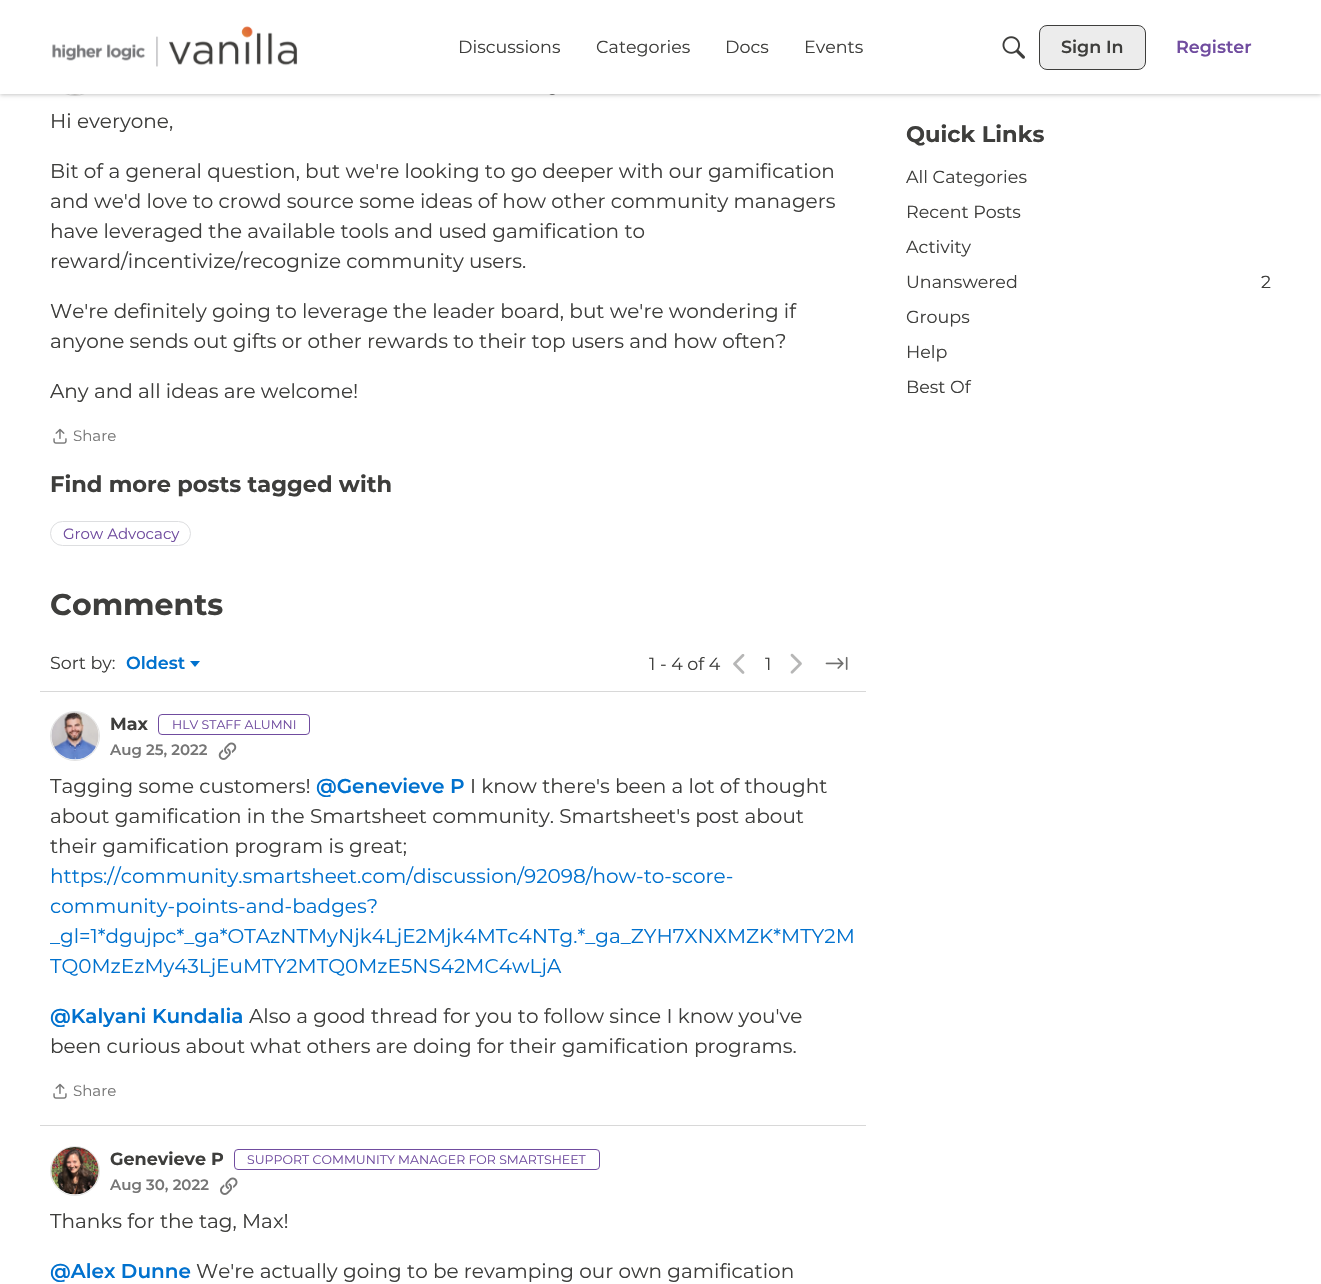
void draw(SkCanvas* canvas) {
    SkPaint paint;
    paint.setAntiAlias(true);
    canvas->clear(0xFFFFFFFF);
    paint.setStyle(SkPaint::kStroke_Style);
    paint.setStrokeWidth(1);
    paint.setColor(0xFFE2E2E2);
    canvas->drawCircle(75, 71, 24.5f, paint);
    canvas->drawImageRect(SkImages::DeferredFromEncodedData(SkData::MakeFromFileName("img3.png")), SkRect::MakeXYWH(71, 94, 8, 1), SkSamplingOptions());
    canvas->drawImageRect(SkImages::DeferredFromEncodedData(SkData::MakeFromFileName("img4.png")), SkRect::MakeXYWH(549, 94, 6, 1), SkSamplingOptions());
    paint.setStyle(SkPaint::kFill_Style);
    paint.setColor(0x38000000);
    paint.setMaskFilter(SkMaskFilter::MakeBlur(kNormal_SkBlurStyle, 2));
    canvas->drawRect(SkRect::MakeXYWH(0, 1, 1321, 94), paint);
    paint.setMaskFilter(nullptr);
    paint.setColor(0xFFFFFFFF);
    canvas->drawRect(SkRect::MakeXYWH(0, 0, 1321, 94), paint);
    canvas->drawImageRect(SkImages::DeferredFromEncodedData(SkData::MakeFromFileName("img1.png")), SkRect::MakeXYWH(52, 26, 246, 41), SkSamplingOptions());
    SkFont font1(fontMgr->matchFamilyStyle("Montserrat", SkFontStyle::Normal()), 17.5f);
    font1.setSubpixel(true);
    paint.setColor(0xFF3E3E3C);
    canvas->drawString("Discussions", 458, 53, font1, paint);
    canvas->drawString("Categories", 596, 53, font1, paint);
    canvas->drawString("Docs", 725, 53, font1, paint);
    canvas->drawString("Events", 804, 53, font1, paint);
    canvas->drawImageRect(SkImages::DeferredFromEncodedData(SkData::MakeFromFileName("img2.png")), SkRect::MakeXYWH(1002, 36, 23, 23), SkSamplingOptions());
    paint.setColor(0xFFECECEC);
    canvas->drawRoundRect(SkRect::MakeXYWH(1039.5f, 25.5f, 106, 44), 7.5f, 7.5f, paint);
    paint.setStyle(SkPaint::kStroke_Style);
    paint.setColor(0xFF3E3E3C);
    canvas->drawRoundRect(SkRect::MakeXYWH(1039.5f, 25.5f, 106, 44), 7.5f, 7.5f, paint);
    SkFont font2(fontMgr->matchFamilyStyle("Montserrat", SkFontStyle(600, SkFontStyle::kNormal_Width, SkFontStyle::kUpright_Slant)), 17.5f);
    font2.setSubpixel(true);
    paint.setStyle(SkPaint::kFill_Style);
    canvas->drawString("Sign In", 1061, 53, font2, paint);
    paint.setColor(0xFF704C9F);
    canvas->drawString("Register", 1176, 53, font2, paint);
    SkFont font3(fontMgr->matchFamilyStyle("Montserrat", SkFontStyle::Normal()), 20);
    font3.setSubpixel(true);
    paint.setColor(0xFF3E3E3C);
    canvas->drawString("Hi everyone,", 50, 128, font3, paint);
    canvas->drawString("Bit of a general question, but we're looking to go deeper with our gamification", 50, 178, font3, paint);
    canvas->drawString("and we'd love to crowd source some ideas of how other community managers", 50, 208, font3, paint);
    canvas->drawString("have leveraged the available tools and used gamification to", 50, 238, font3, paint);
    canvas->drawString("reward/incentivize/recognize community users.", 50, 268, font3, paint);
    canvas->drawString("We're definitely going to leverage the leader board, but we're wondering if", 50, 318, font3, paint);
    canvas->drawString("anyone sends out gifts or other rewards to their top users and how often?", 50, 348, font3, paint);
    canvas->drawString("Any and all ideas are welcome!", 50, 398, font3, paint);
    canvas->drawImageRect(SkImages::DeferredFromEncodedData(SkData::MakeFromFileName("img5.png")), SkRect::MakeXYWH(53, 428, 14, 16), SkSamplingOptions());
    SkFont font4(fontMgr->matchFamilyStyle("Montserrat", SkFontStyle::Normal()), 15);
    font4.setSubpixel(true);
    paint.setColor(0xFF767676);
    canvas->drawString("Share", 73, 441, font4, paint);
    SkFont font5(fontMgr->matchFamilyStyle("Montserrat", SkFontStyle::Bold()), 22.5f);
    font5.setSubpixel(true);
    paint.setColor(0xFF3E3E3C);
    canvas->drawString("Find more posts tagged with", 50, 492, font5, paint);
    paint.setStyle(SkPaint::kStroke_Style);
    paint.setColor(0xFFDDDEE0);
    canvas->drawRoundRect(SkRect::MakeXYWH(50.5f, 521.5f, 140, 24), 12, 12, paint);
    paint.setStyle(SkPaint::kFill_Style);
    paint.setColor(0xFF704C9F);
    canvas->drawString("Grow Advocacy", 63, 539, font4, paint);
    SkFont font6(fontMgr->matchFamilyStyle("Montserrat", SkFontStyle::Bold()), 30);
    font6.setSubpixel(true);
    paint.setColor(0xFF3E3E3C);
    canvas->drawString("Comments", 50, 615, font6, paint);
    canvas->drawString("Sort by:", 50, 669, font1, paint);
    paint.setColor(0xFF0071CE);
    canvas->drawString("Oldest", 126, 669, font2, paint);
    canvas->drawPath(SkPathBuilder().moveTo(190, 661).lineTo(200, 661).lineTo(195, 667).close().detach(), paint);
    paint.setColor(0xFF3E3E3C);
    canvas->drawString("1 - 4 of 4", 649, 670, font1, paint);
    canvas->drawImageRect(SkImages::DeferredFromEncodedData(SkData::MakeFromFileName("img6.png")), SkRect::MakeXYWH(733, 654, 12, 20), SkSamplingOptions());
    canvas->drawString("1", 765, 670, font1, paint);
    canvas->drawImageRect(SkImages::DeferredFromEncodedData(SkData::MakeFromFileName("img7.png")), SkRect::MakeXYWH(790, 653, 12, 21), SkSamplingOptions());
    canvas->drawImageRect(SkImages::DeferredFromEncodedData(SkData::MakeFromFileName("img8.png")), SkRect::MakeXYWH(825, 656, 23, 14), SkSamplingOptions());
    paint.setColor(0xFFD8D8D8);
    canvas->drawRect(SkRect::MakeXYWH(40, 691, 826, 1), paint);
    paint.setStyle(SkPaint::kStroke_Style);
    paint.setColor(0xFFE2E2E2);
    canvas->drawCircle(75, 736, 24.5f, paint);
    canvas->drawImageRect(SkImages::DeferredFromEncodedData(SkData::MakeFromFileName("img9.png")), SkRect::MakeXYWH(51, 712, 48, 48), SkSamplingOptions());
    SkFont font7(fontMgr->matchFamilyStyle("Montserrat", SkFontStyle::Bold()), 17.5f);
    font7.setSubpixel(true);
    paint.setStyle(SkPaint::kFill_Style);
    paint.setColor(0xFF3E3E3C);
    canvas->drawString("Max", 110, 730, font7, paint);
    paint.setStyle(SkPaint::kStroke_Style);
    paint.setColor(0xFF704C9F);
    canvas->drawRoundRect(SkRect::MakeXYWH(158.5f, 714.5f, 151, 20), 3.5f, 3.5f, paint);
    SkFont font8(fontMgr->matchFamilyStyle("Montserrat", SkFontStyle::Normal()), 12.5f);
    font8.setSubpixel(true);
    paint.setStyle(SkPaint::kFill_Style);
    canvas->drawString("HLV STAFF ALUMNI", 172, 729, font8, paint);
    SkFont font9(fontMgr->matchFamilyStyle("Montserrat", SkFontStyle(600, SkFontStyle::kNormal_Width, SkFontStyle::kUpright_Slant)), 15);
    font9.setSubpixel(true);
    paint.setColor(0xFF767676);
    canvas->drawString("Aug 25, 2022", 110, 755, font9, paint);
    canvas->drawImageRect(SkImages::DeferredFromEncodedData(SkData::MakeFromFileName("img10.png")), SkRect::MakeXYWH(218, 742, 19, 18), SkSamplingOptions());
    paint.setColor(0xFF3E3E3C);
    canvas->drawString("Tagging some customers!", 50, 793, font3, paint);
    SkFont font10(fontMgr->matchFamilyStyle("Montserrat", SkFontStyle(600, SkFontStyle::kNormal_Width, SkFontStyle::kUpright_Slant)), 20);
    font10.setSubpixel(true);
    paint.setColor(0xFF0071CE);
    canvas->drawString("@Genevieve P", 316, 793, font10, paint);
    paint.setColor(0xFF3E3E3C);
    canvas->drawString("I know there's been a lot of thought", 470, 793, font3, paint);
    canvas->drawString("about gamification in the Smartsheet community. Smartsheet's post about", 50, 823, font3, paint);
    canvas->drawString("their gamification program is great;", 50, 853, font3, paint);
    paint.setColor(0xFF0071CE);
    canvas->drawString("https://community.smartsheet.com/discussion/92098/how-to-score-", 50, 883, font3, paint);
    canvas->drawString("community-points-and-badges?", 50, 913, font3, paint);
    canvas->drawString("_gl=1*dgujpc*_ga*OTAzNTMyNjk4LjE2Mjk4MTc4NTg.*_ga_ZYH7XNXMZK*MTY2M", 50, 943, font3, paint);
    canvas->drawString("TQ0MzEzMy43LjEuMTY2MTQ0MzE5NS42MC4wLjA", 50, 973, font3, paint);
    canvas->drawString("@Kalyani Kundalia", 50, 1023, font10, paint);
    paint.setColor(0xFF3E3E3C);
    canvas->drawString("Also a good thread for you to follow since I know you've", 249, 1023, font3, paint);
    canvas->drawString("been curious about what others are doing for their gamification programs.", 50, 1053, font3, paint);
    canvas->drawImageRect(SkImages::DeferredFromEncodedData(SkData::MakeFromFileName("img5.png")), SkRect::MakeXYWH(53, 1083, 14, 16), SkSamplingOptions());
    paint.setColor(0xFF767676);
    canvas->drawString("Share", 73, 1096, font4, paint);
    paint.setColor(0xFFD8D8D8);
    canvas->drawRect(SkRect::MakeXYWH(40, 1125, 826, 1), paint);
    paint.setStyle(SkPaint::kStroke_Style);
    paint.setColor(0xFFE2E2E2);
    canvas->drawCircle(75, 1171, 24.5f, paint);
    canvas->drawImageRect(SkImages::DeferredFromEncodedData(SkData::MakeFromFileName("img11.png")), SkRect::MakeXYWH(51, 1147, 48, 48), SkSamplingOptions());
    paint.setStyle(SkPaint::kFill_Style);
    paint.setColor(0xFF3E3E3C);
    canvas->drawString("Genevieve P", 110, 1165, font7, paint);
    paint.setStyle(SkPaint::kStroke_Style);
    paint.setColor(0xFF704C9F);
    canvas->drawRoundRect(SkRect::MakeXYWH(234.5f, 1149.5f, 365, 20), 3.5f, 3.5f, paint);
    paint.setStyle(SkPaint::kFill_Style);
    canvas->drawString("SUPPORT COMMUNITY MANAGER FOR SMARTSHEET", 247, 1164, font8, paint);
    paint.setColor(0xFF767676);
    canvas->drawString("Aug 30, 2022", 110, 1190, font9, paint);
    canvas->drawImageRect(SkImages::DeferredFromEncodedData(SkData::MakeFromFileName("img12.png")), SkRect::MakeXYWH(220, 1177, 18, 18), SkSamplingOptions());
    paint.setColor(0xFF3E3E3C);
    canvas->drawString("Thanks for the tag, Max!", 50, 1228, font3, paint);
    paint.setColor(0xFF0071CE);
    canvas->drawString("@Alex Dunne", 50, 1278, font10, paint);
    paint.setColor(0xFF3E3E3C);
    canvas->drawString("We're actually going to be revamping our own gamification", 196, 1278, font3, paint);
    canvas->drawString("Quick Links", 906, 142, font5, paint);
    canvas->drawString("All Categories", 906, 183, font1, paint);
    canvas->drawString("Recent Posts", 906, 218, font1, paint);
    canvas->drawString("Activity", 906, 253, font1, paint);
    canvas->drawString("Unanswered", 906, 288, font1, paint);
    canvas->drawString("2", 1261, 288, font1, paint);
    canvas->drawString("Groups", 906, 323, font1, paint);
    canvas->drawString("Help", 906, 358, font1, paint);
    canvas->drawString("Best Of", 906, 393, font1, paint);
}
